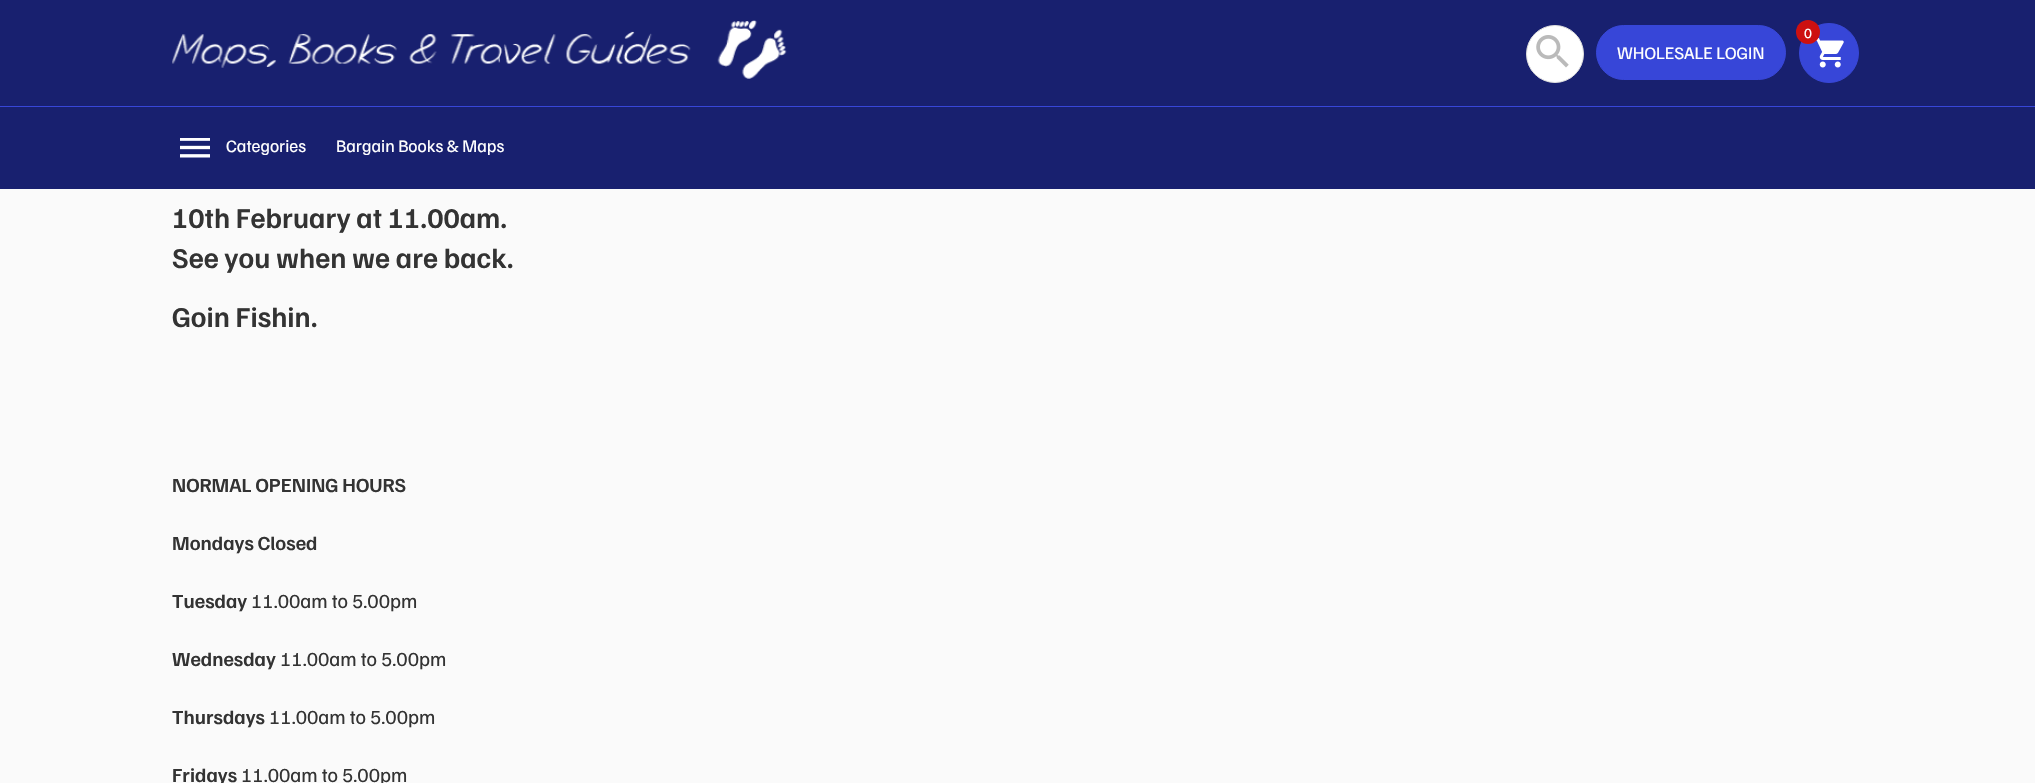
void draw(SkCanvas* canvas) {
    SkPaint paint;
    paint.setAntiAlias(true);
    canvas->clear(0xFFFAFAFA);
    paint.setColor(0xFF18206F);
    canvas->drawRect(SkRect::MakeXYWH(0, 0, 2035, 189), paint);
    canvas->drawImageRect(SkImages::DeferredFromEncodedData(SkData::MakeFromFileName("img1.png")), SkRect::MakeXYWH(172, 20, 615, 59), SkSamplingOptions());
    paint.setColor(0xFFFFFFFF);
    canvas->drawCircle(1555, 54, 28.5f, paint);
    paint.setStyle(SkPaint::kStroke_Style);
    paint.setStrokeWidth(1);
    paint.setColor(0xFFDDDDDD);
    canvas->drawCircle(1555, 54, 28.5f, paint);
    canvas->drawImageRect(SkImages::DeferredFromEncodedData(SkData::MakeFromFileName("img2.png")), SkRect::MakeXYWH(1536, 35, 33, 33), SkSamplingOptions());
    paint.setStyle(SkPaint::kFill_Style);
    paint.setColor(0xFF3746D8);
    canvas->drawCircle(1829, 53, 29.5f, paint);
    paint.setStyle(SkPaint::kStroke_Style);
    canvas->drawCircle(1829, 53, 29.5f, paint);
    canvas->drawImageRect(SkImages::DeferredFromEncodedData(SkData::MakeFromFileName("img3.png")), SkRect::MakeXYWH(1815, 38, 29, 30), SkSamplingOptions());
    paint.setStyle(SkPaint::kFill_Style);
    paint.setColor(0xFFCD1010);
    canvas->drawCircle(1808, 32, 12, paint);
    SkFont font1(fontMgr->matchFamilyStyle("Familjen Grotesk", SkFontStyle::Normal()), 14);
    font1.setSubpixel(true);
    paint.setColor(0xFFFFFFFF);
    canvas->drawString("0", 1804, 38, font1, paint);
    paint.setColor(0xFF3746D8);
    canvas->drawRoundRect(SkRect::MakeXYWH(1596.5f, 25.5f, 189, 54), 27, 27, paint);
    paint.setStyle(SkPaint::kStroke_Style);
    canvas->drawRoundRect(SkRect::MakeXYWH(1596.5f, 25.5f, 189, 54), 27, 27, paint);
    SkFont font2(fontMgr->matchFamilyStyle("Familjen Grotesk", SkFontStyle::Normal()), 17.5f);
    font2.setSubpixel(true);
    paint.setStyle(SkPaint::kFill_Style);
    paint.setColor(0xFFFFFFFF);
    canvas->drawString("WHOLESALE LOGIN", 1617, 59, font2, paint);
    paint.setColor(0xFF3746D8);
    canvas->drawRect(SkRect::MakeXYWH(0, 106, 2035, 1), paint);
    canvas->drawImageRect(SkImages::DeferredFromEncodedData(SkData::MakeFromFileName("img4.png")), SkRect::MakeXYWH(180, 138, 30, 20), SkSamplingOptions());
    paint.setColor(0xFFFFFFFF);
    canvas->drawString("Categories", 226, 152, font2, paint);
    canvas->drawString("Bargain Books & Maps", 336, 152, font2, paint);
    SkFont font3(fontMgr->matchFamilyStyle("Familjen Grotesk", SkFontStyle(600, SkFontStyle::kNormal_Width, SkFontStyle::kUpright_Slant)), 28.75f);
    font3.setSubpixel(true);
    paint.setColor(0xFF333333);
    canvas->drawString("10th February at 11.00am.", 172, 228, font3, paint);
    canvas->drawString("See you when we are back.", 172, 268, font3, paint);
    canvas->drawString("Goin Fishin.", 172, 327, font3, paint);
    SkFont font4(fontMgr->matchFamilyStyle("Familjen Grotesk", SkFontStyle(600, SkFontStyle::kNormal_Width, SkFontStyle::kUpright_Slant)), 20);
    font4.setSubpixel(true);
    canvas->drawString("NORMAL OPENING HOURS", 172, 492, font4, paint);
    canvas->drawString("Mondays Closed", 172, 550, font4, paint);
    canvas->drawString("Tuesday", 172, 608, font4, paint);
    SkFont font5(fontMgr->matchFamilyStyle("Familjen Grotesk", SkFontStyle::Normal()), 20);
    font5.setSubpixel(true);
    canvas->drawString("11.00am to 5.00pm", 251, 608, font5, paint);
    canvas->drawString("Wednesday", 172, 666, font4, paint);
    canvas->drawString("11.00am to 5.00pm", 280, 666, font5, paint);
    canvas->drawString("Thursdays", 172, 724, font4, paint);
    canvas->drawString("11.00am to 5.00pm", 269, 724, font5, paint);
    canvas->drawString("Fridays", 172, 782, font4, paint);
    canvas->drawString("11.00am to 5.00pm", 241, 782, font5, paint);
}
